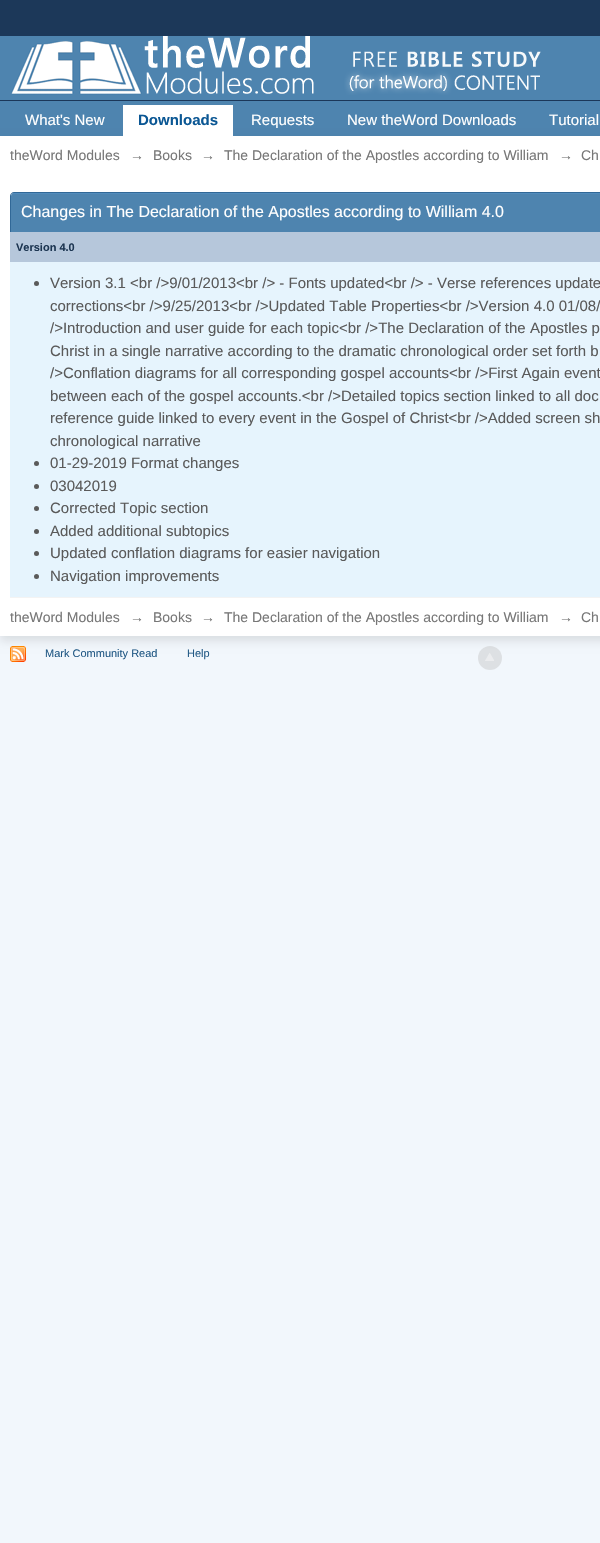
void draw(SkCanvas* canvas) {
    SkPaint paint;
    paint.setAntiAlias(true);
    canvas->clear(0xFFF2F7FC);
    paint.setColor(0xFF1C3859);
    canvas->drawRect(SkRect::MakeXYWH(0, 0, 600, 36), paint);
    paint.setColor(0xFF4E84AF);
    canvas->drawRect(SkRect::MakeXYWH(0, 36, 600, 64), paint);
    paint.setColor(0xFF1B3759);
    canvas->drawRect(SkRect::MakeXYWH(0, 100, 600, 1), paint);
    canvas->drawImageRect(SkImages::DeferredFromEncodedData(SkData::MakeFromFileName("img1.png")), SkRect::MakeXYWH(11, 36, 530, 59), SkSamplingOptions());
    paint.setColor(0xFF4E84AF);
    canvas->drawRect(SkRect::MakeXYWH(0, 101, 600, 35), paint);
    SkFont font1(fontMgr->matchFamilyStyle("Liberation Sans", SkFontStyle::Normal()), 15);
    font1.setSubpixel(true);
    paint.setColor(0xFFFFFFFF);
    canvas->drawString("What's New", 25, 125, font1, paint);
    paint.setColor(0x1A000000);
    paint.setMaskFilter(SkMaskFilter::MakeBlur(kNormal_SkBlurStyle, 4.5f));
    canvas->drawRect(SkRect::MakeXYWH(0, 141, 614, 500), paint);
    paint.setMaskFilter(nullptr);
    paint.setColor(0xFFFFFFFF);
    canvas->drawRect(SkRect::MakeXYWH(123, 105, 110, 31), paint);
    SkFont font2(fontMgr->matchFamilyStyle("Liberation Sans", SkFontStyle::Bold()), 15);
    font2.setSubpixel(true);
    paint.setColor(0xFF0B5794);
    canvas->drawString("Downloads", 138, 125, font2, paint);
    paint.setColor(0xFFFFFFFF);
    canvas->drawString("Requests", 251, 125, font1, paint);
    canvas->drawString("New theWord Downloads", 347, 125, font1, paint);
    canvas->drawString("Tutorial", 549, 125, font1, paint);
    canvas->drawRect(SkRect::MakeXYWH(0, 136, 600, 500), paint);
    SkFont font3(fontMgr->matchFamilyStyle("Liberation Sans", SkFontStyle::Normal()), 14);
    font3.setSubpixel(true);
    paint.setColor(0xFF777777);
    canvas->drawString("theWord Modules", 10, 160, font3, paint);
    canvas->drawString("→", 130, 160, font3, paint);
    canvas->drawString("Books", 153, 160, font3, paint);
    canvas->drawString("→", 201, 160, font3, paint);
    canvas->drawString("The Declaration of the Apostles according to William", 224, 160, font3, paint);
    canvas->drawString("→", 559, 160, font3, paint);
    canvas->drawString("Ch", 581, 160, font3, paint);
    paint.setColor(0xFF4E84AF);
    canvas->drawPath(SkPathBuilder().moveTo(14, 193).lineTo(600, 193).cubicTo(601.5f, 193, 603, 194.5f, 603, 196).lineTo(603, 232).lineTo(11, 232).lineTo(11, 196).cubicTo(11, 194.5f, 12.5f, 193, 14, 193).close().detach(), paint);
    paint.setColor(0xFF528CBC);
    canvas->drawPath(SkPathBuilder().moveTo(14, 194).lineTo(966, 194).cubicTo(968, 194, 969, 195, 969, 197).cubicTo(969, 195, 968, 193, 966, 193).lineTo(14, 193).cubicTo(12, 193, 11, 195, 11, 197).cubicTo(11, 195, 12, 194, 14, 194).close().detach(), paint);
    paint.setColor(0xFF316897);
    canvas->drawPath(SkPathBuilder(SkPathFillType::kEvenOdd).moveTo(14, 192).lineTo(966, 192).cubicTo(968, 192, 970, 194, 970, 196).lineTo(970, 232).lineTo(10, 232).lineTo(10, 196).cubicTo(10, 194, 12, 192, 14, 192).close().moveTo(14, 193).lineTo(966, 193).cubicTo(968, 193, 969, 194, 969, 196).lineTo(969, 232).lineTo(11, 232).lineTo(11, 196).cubicTo(11, 194, 12, 193, 14, 193).close().detach(), paint);
    SkFont font4(fontMgr->matchFamilyStyle("Liberation Sans", SkFontStyle::Normal()), 16);
    font4.setSubpixel(true);
    paint.setColor(0xFFFFFFFF);
    canvas->drawString("Changes in The Declaration of the Apostles according to William 4.0", 21, 217, font4, paint);
    paint.setColor(0xFFB6C7DB);
    canvas->drawRect(SkRect::MakeXYWH(10, 232, 590, 30), paint);
    SkFont font5(fontMgr->matchFamilyStyle("Liberation Sans", SkFontStyle::Bold()), 11);
    font5.setSubpixel(true);
    paint.setColor(0xFF1D3652);
    canvas->drawString("Version 4.0", 16, 251, font5, paint);
    paint.setColor(0xFFE6F4FD);
    canvas->drawRect(SkRect::MakeXYWH(10, 262, 590, 335), paint);
    paint.setColor(0xFFF3F3F3);
    canvas->drawRect(SkRect::MakeXYWH(10, 597, 590, 1), paint);
    paint.setColor(0xFF5A5A5A);
    canvas->drawCircle(36.5f, 283.5f, 2.5f, paint);
    canvas->drawString("Version 3.1 <br />9/01/2013<br /> - Fonts updated<br /> - Verse references update", 50, 288, font1, paint);
    canvas->drawString("corrections<br />9/25/2013<br />Updated Table Properties<br />Version 4.0 01/08/", 50, 311, font1, paint);
    canvas->drawString("/>Introduction and user guide for each topic<br />The Declaration of the Apostles p", 50, 333, font1, paint);
    canvas->drawString("Christ in a single narrative according to the dramatic chronological order set forth b", 50, 356, font1, paint);
    canvas->drawString("/>Conflation diagrams for all corresponding gospel accounts<br />First Again event", 50, 378, font1, paint);
    canvas->drawString("between each of the gospel accounts.<br />Detailed topics section linked to all doc", 50, 401, font1, paint);
    canvas->drawString("reference guide linked to every event in the Gospel of Christ<br />Added screen sh", 50, 423, font1, paint);
    canvas->drawString("chronological narrative", 50, 446, font1, paint);
    canvas->drawCircle(36.5f, 463.5f, 2.5f, paint);
    canvas->drawString("01-29-2019 Format changes", 50, 468, font1, paint);
    canvas->drawCircle(36.5f, 486.5f, 2.5f, paint);
    canvas->drawString("03042019", 50, 491, font1, paint);
    canvas->drawCircle(36.5f, 508.5f, 2.5f, paint);
    canvas->drawString("Corrected Topic section", 50, 513, font1, paint);
    canvas->drawCircle(36.5f, 531.5f, 2.5f, paint);
    canvas->drawString("Added additional subtopics", 50, 536, font1, paint);
    canvas->drawCircle(36.5f, 553.5f, 2.5f, paint);
    canvas->drawString("Updated conflation diagrams for easier navigation", 50, 558, font1, paint);
    canvas->drawCircle(36.5f, 576.5f, 2.5f, paint);
    canvas->drawString("Navigation improvements", 50, 581, font1, paint);
    paint.setColor(0xFF777777);
    canvas->drawString("theWord Modules", 10, 622, font3, paint);
    canvas->drawString("→", 130, 622, font3, paint);
    canvas->drawString("Books", 153, 622, font3, paint);
    canvas->drawString("→", 201, 622, font3, paint);
    canvas->drawString("The Declaration of the Apostles according to William", 224, 622, font3, paint);
    canvas->drawString("→", 559, 622, font3, paint);
    canvas->drawString("Ch", 581, 622, font3, paint);
    canvas->drawImageRect(SkImages::DeferredFromEncodedData(SkData::MakeFromFileName("img2.png")), SkRect::MakeXYWH(10, 646, 16, 16), SkSamplingOptions());
    SkFont font6(fontMgr->matchFamilyStyle("Liberation Sans", SkFontStyle::Normal()), 11);
    font6.setSubpixel(true);
    paint.setColor(0xFF225985);
    canvas->drawString("Mark Community Read", 45, 657, font6, paint);
    canvas->drawString("Help", 187, 657, font6, paint);
    paint.setColor(0x66BDBDBD);
    canvas->drawCircle(490, 658, 12, paint);
    canvas->drawImageRect(SkImages::DeferredFromEncodedData(SkData::MakeFromFileName("img3.png")), SkRect::MakeXYWH(485, 653, 9, 8), SkSamplingOptions());
}
